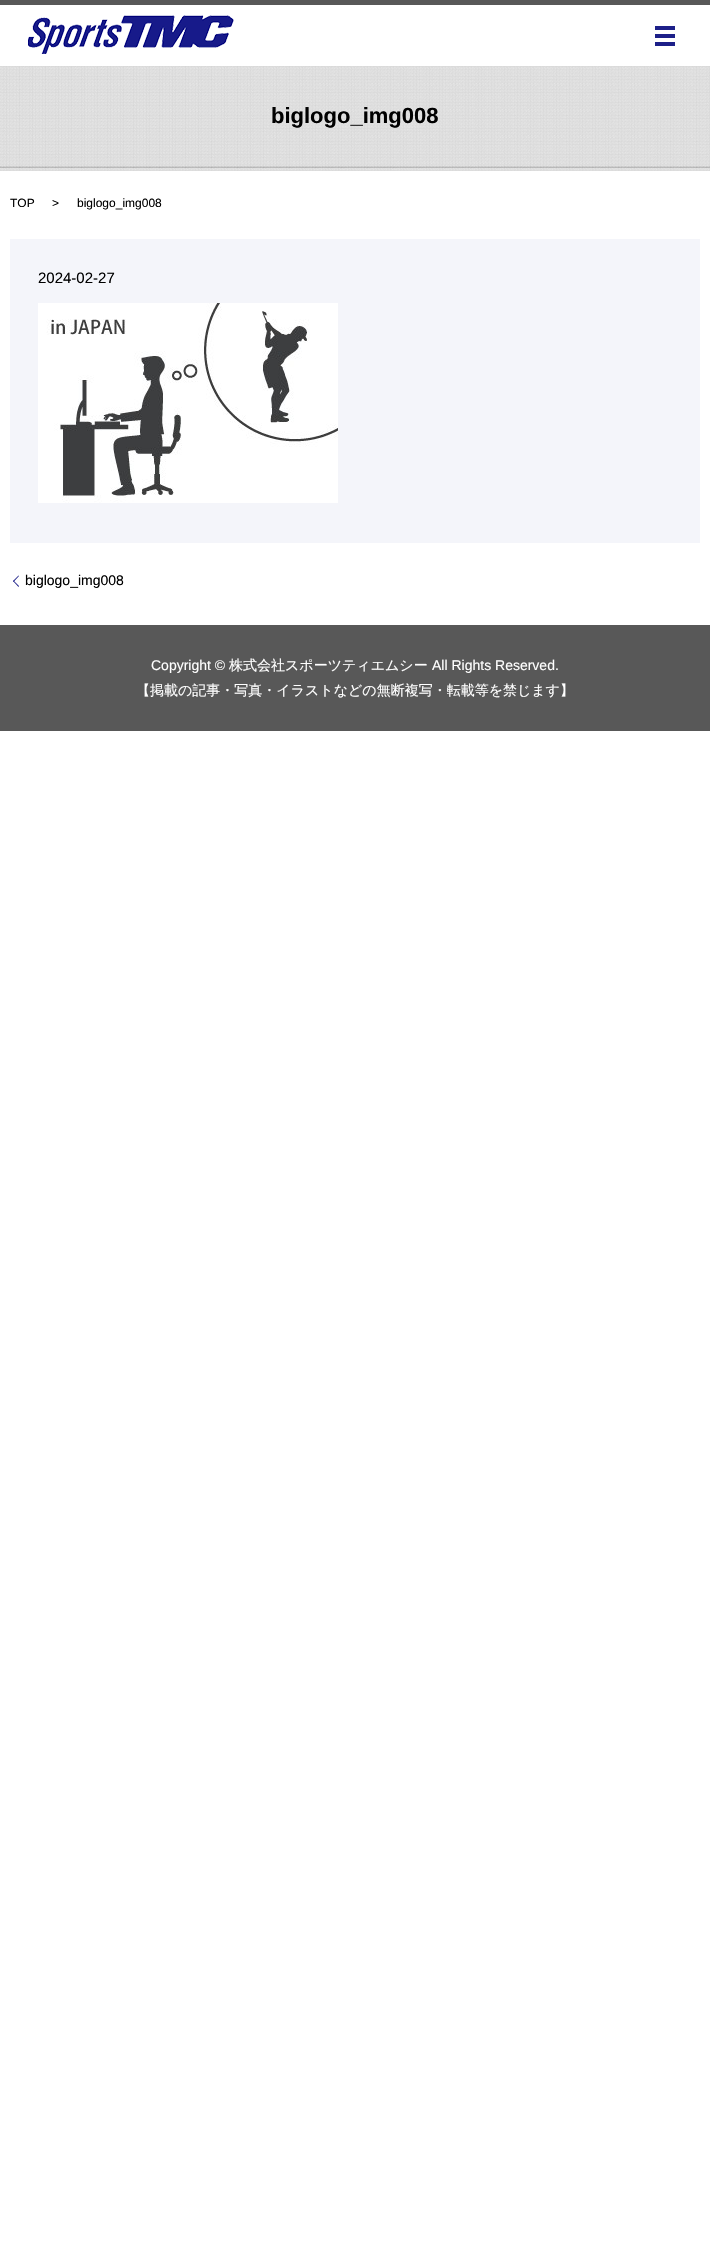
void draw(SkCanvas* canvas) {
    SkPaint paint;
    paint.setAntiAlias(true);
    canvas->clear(0xFFFFFFFF);
    paint.setColor(0xFF585858);
    canvas->drawRect(SkRect::MakeXYWH(0, 0, 710, 5), paint);
    canvas->drawImageRect(SkImages::DeferredFromEncodedData(SkData::MakeFromFileName("img1.png")), SkRect::MakeXYWH(28, 15, 206, 39), SkSamplingOptions());
    paint.setColor(0xFF1D2089);
    canvas->drawRect(SkRect::MakeXYWH(655, 26, 20, 4), paint);
    canvas->drawRect(SkRect::MakeXYWH(655, 34, 20, 4), paint);
    canvas->drawRect(SkRect::MakeXYWH(655, 42, 20, 4), paint);
    canvas->drawImageRect(SkImages::DeferredFromEncodedData(SkData::MakeFromFileName("img2.png")), SkRect::MakeXYWH(0, 66, 710, 105), SkSamplingOptions());
    SkFont font1(fontMgr->matchFamilyStyle("Liberation Sans", SkFontStyle::Bold()), 22);
    font1.setSubpixel(true);
    paint.setColor(0xFF000000);
    canvas->drawString("biglogo_img008", 271, 123, font1, paint);
    SkFont font2(fontMgr->matchFamilyStyle("Liberation Sans", SkFontStyle::Normal()), 12);
    font2.setSubpixel(true);
    canvas->drawString("TOP", 10, 207, font2, paint);
    canvas->drawString(">", 52, 207, font2, paint);
    canvas->drawString("biglogo_img008", 77, 207, font2, paint);
    paint.setColor(0xFFF4F5FA);
    canvas->drawRect(SkRect::MakeXYWH(10, 239, 690, 304), paint);
    SkFont font3(fontMgr->matchFamilyStyle("Liberation Sans", SkFontStyle::Normal()), 15);
    font3.setSubpixel(true);
    paint.setColor(0xFF000000);
    canvas->drawString("2024-02-27", 38, 283, font3, paint);
    canvas->drawImageRect(SkImages::DeferredFromEncodedData(SkData::MakeFromFileName("img3.png")), SkRect::MakeXYWH(38, 303, 300, 200), SkSamplingOptions());
    paint.setColor(0xFF1D2089);
    canvas->drawPath(SkPathBuilder().moveTo(13, 581).lineTo(18.5f, 575.5f).lineTo(19, 576).lineTo(13.5f, 582).close().detach(), paint);
    SkFont font4(fontMgr->matchFamilyStyle("Liberation Sans", SkFontStyle::Normal()), 14);
    font4.setSubpixel(true);
    paint.setColor(0xFF000000);
    canvas->drawString("biglogo_img008", 25, 585, font4, paint);
    paint.setColor(0xFF1D2089);
    canvas->drawPath(SkPathBuilder().moveTo(18.5f, 587).lineTo(13, 581).lineTo(13.5f, 580.5f).lineTo(19, 586).close().detach(), paint);
    paint.setColor(0xFF585858);
    canvas->drawRect(SkRect::MakeXYWH(0, 625, 710, 106), paint);
    paint.setColor(0xFFFFFFFF);
    canvas->drawString("Copyright ©", 151, 670, font4, paint);
    SkFont font5(fontMgr->matchFamilyStyle("WenQuanYi Zen Hei", SkFontStyle(500, SkFontStyle::kNormal_Width, SkFontStyle::kUpright_Slant)), 14);
    font5.setSubpixel(true);
    canvas->drawString("株式会社スポーツティエムシー", 229, 670, font5, paint);
    canvas->drawString("All Rights Reserved.", 432, 670, font4, paint);
    canvas->drawString("【掲載の記事・写真・イラストなどの無断複写・転載等を禁じます】", 136, 695, font5, paint);
}
